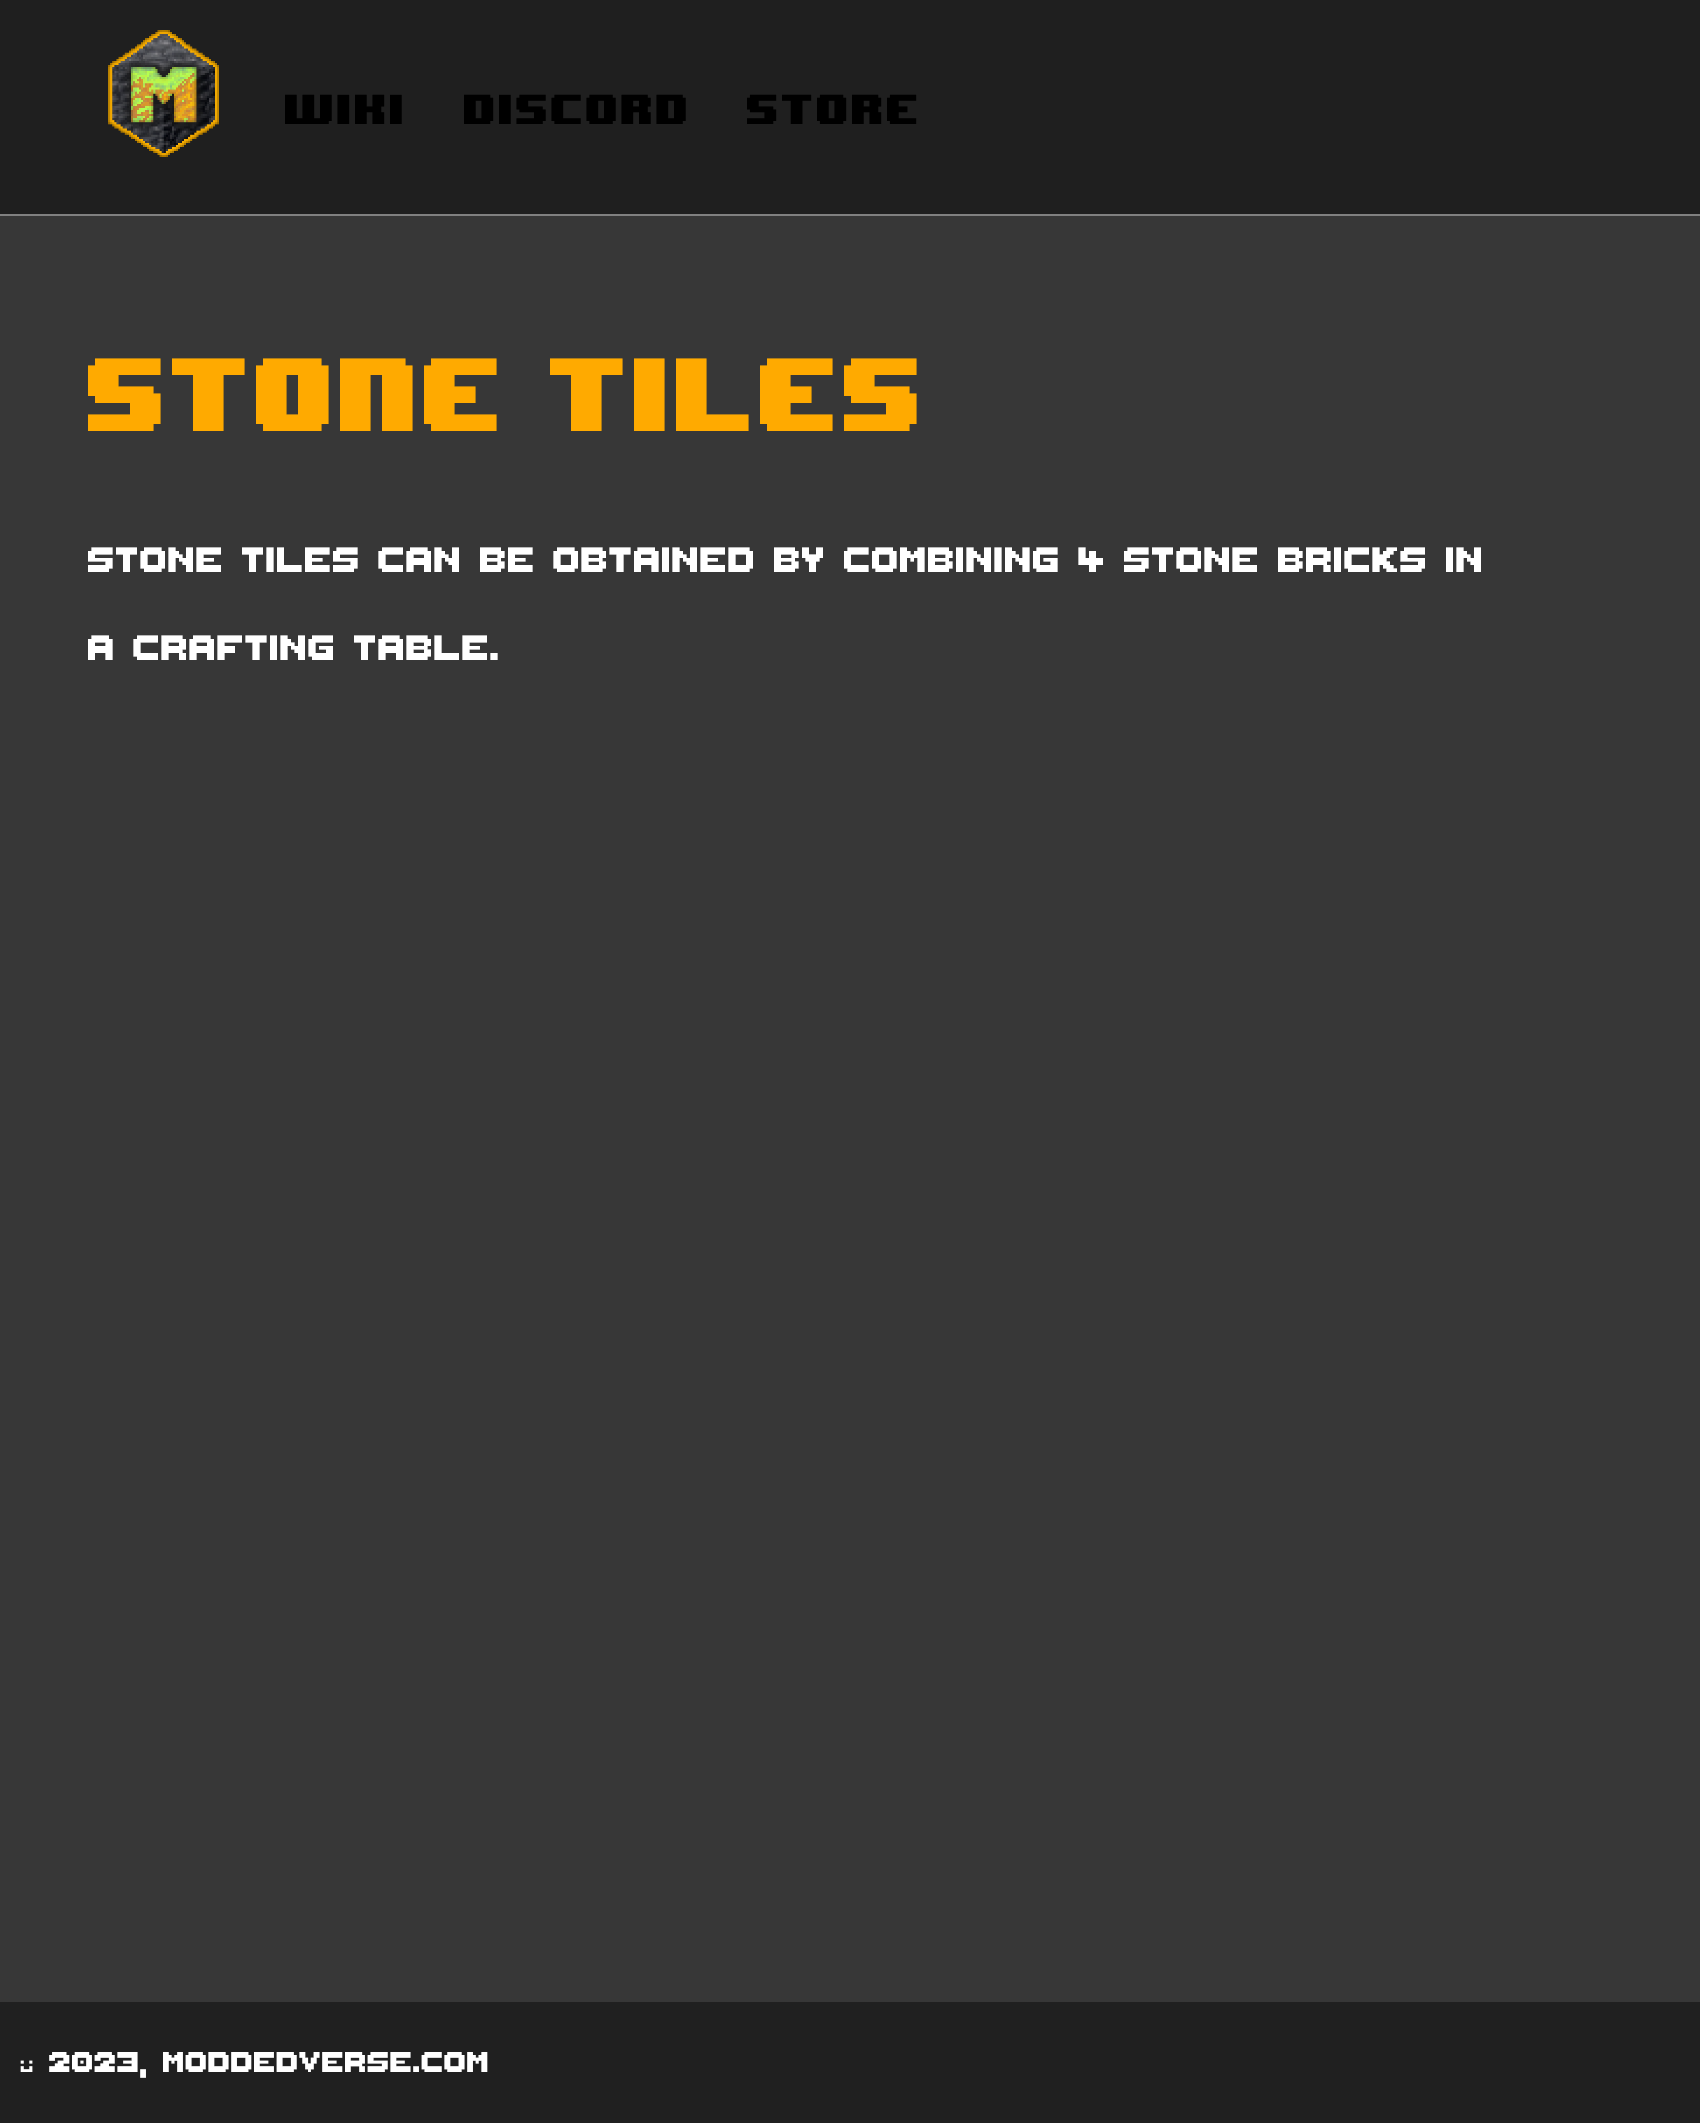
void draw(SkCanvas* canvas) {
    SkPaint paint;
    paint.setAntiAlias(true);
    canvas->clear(0xFF373737);
    paint.setColor(0xFF1F1F1F);
    canvas->drawRect(SkRect::MakeXYWH(0, 0, 1700, 214), paint);
    paint.setColor(0xFF808080);
    canvas->drawRect(SkRect::MakeXYWH(0, 214, 1700, 2), paint);
    canvas->drawImageRect(SkImages::DeferredFromEncodedData(SkData::MakeFromFileName("img1.png")), SkRect::MakeXYWH(108, 30, 111, 127), SkSamplingOptions());
    SkFont font1(fontMgr->matchFamilyStyle("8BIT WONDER", SkFontStyle::Normal()), 35);
    font1.setSubpixel(true);
    paint.setColor(0xFF000000);
    canvas->drawString("Wiki", 285, 124, font1, paint);
    canvas->drawString("Discord", 464, 124, font1, paint);
    canvas->drawString("Store", 747, 124, font1, paint);
    SkFont font2(fontMgr->matchFamilyStyle("8BIT WONDER", SkFontStyle::Bold()), 84);
    font2.setSubpixel(true);
    paint.setColor(0xFFFFAA00);
    canvas->drawString("Stone Tiles", 88, 431, font2, paint);
    SkFont font3(fontMgr->matchFamilyStyle("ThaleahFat", SkFontStyle(500, SkFontStyle::kNormal_Width, SkFontStyle::kUpright_Slant)), 56);
    font3.setSubpixel(true);
    paint.setColor(0xFFFFFFFF);
    canvas->drawString("Stone Tiles can be obtained by combining 4 Stone Bricks in", 88, 572, font3, paint);
    canvas->drawString("a Crafting Table.", 88, 660, font3, paint);
    paint.setColor(0xFF202020);
    canvas->drawRect(SkRect::MakeXYWH(0, 2002, 1700, 121), paint);
    SkFont font4(fontMgr->matchFamilyStyle("ThaleahFat", SkFontStyle(500, SkFontStyle::kNormal_Width, SkFontStyle::kUpright_Slant)), 45.5f);
    font4.setSubpixel(true);
    paint.setColor(0xFFFFFFFF);
    canvas->drawString("© 2023, moddedverse.com", 18, 2072, font4, paint);
}
